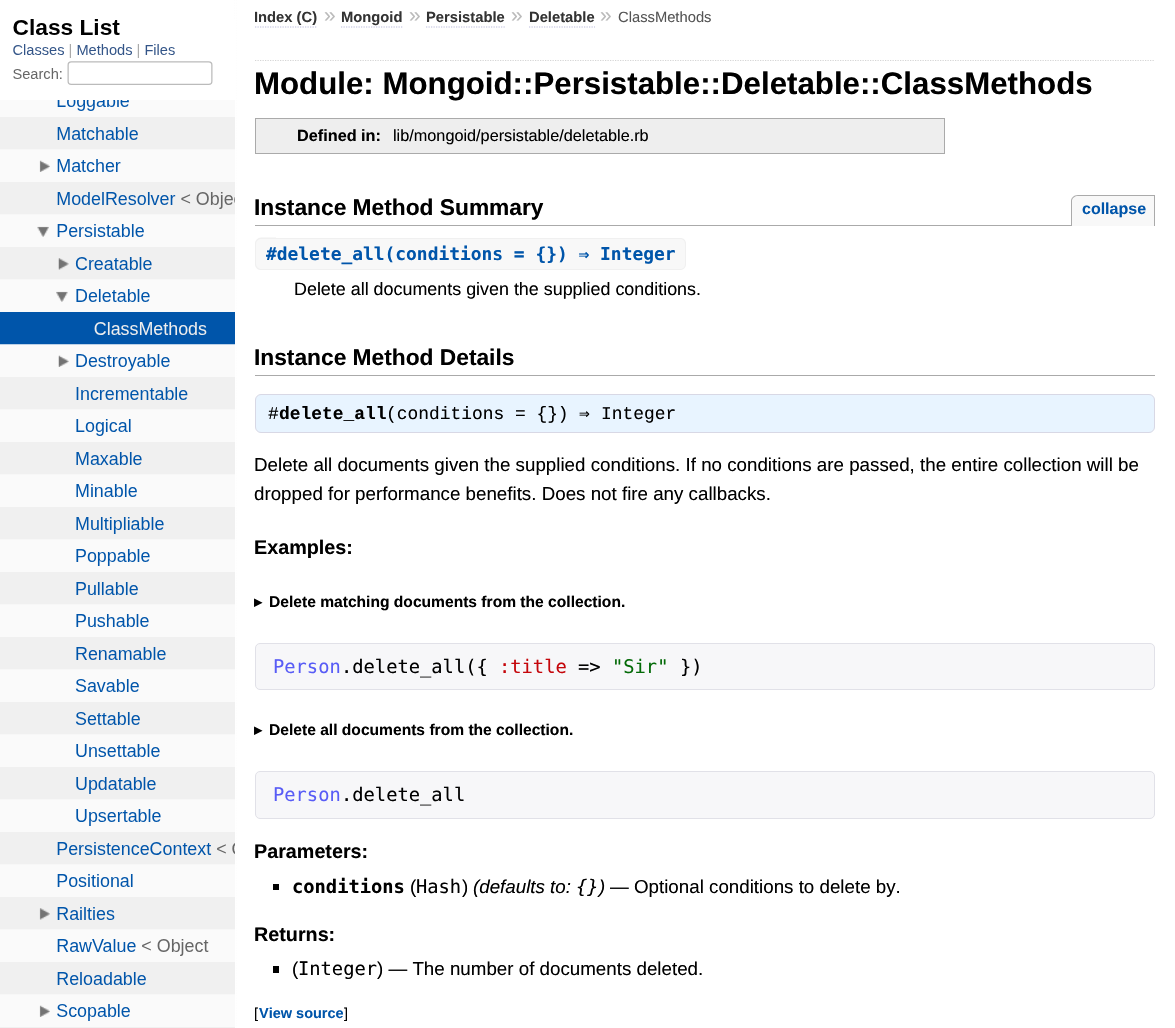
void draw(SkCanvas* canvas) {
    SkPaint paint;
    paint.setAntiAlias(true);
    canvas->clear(0xFFFFFFFF);
    paint.setStyle(SkPaint::kStroke_Style);
    paint.setStrokeWidth(1.2f);
    paint.setColor(0xFFEEEEEE);
    paint.setPathEffect(SkDashPathEffect::Make({{1.25f, 1.25f}}, 0));
    canvas->drawPath(SkPathBuilder().moveTo(235.5f, 0).lineTo(235.5f, 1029).detach(), paint);
    paint.setPathEffect(nullptr);
    canvas->drawImageRect(SkImages::DeferredFromEncodedData(SkData::MakeFromFileName("img1.png")), SkRect::MakeXYWH(0, 19, 235, 1009), SkSamplingOptions());
    paint.setStyle(SkPaint::kFill_Style);
    paint.setColor(0xFFFFFFFF);
    canvas->drawRect(SkRect::MakeXYWH(235, 0, 1, 1028), paint);
    SkFont font1(fontMgr->matchFamilyStyle("Liberation Sans", SkFontStyle::Bold()), 14.75f);
    font1.setSubpixel(true);
    paint.setColor(0xFF333333);
    canvas->drawString("Index (C)", 254, 22, font1, paint);
    paint.setStyle(SkPaint::kStroke_Style);
    paint.setColor(0xFFBBBBDD);
    paint.setPathEffect(SkDashPathEffect::Make({{1.25f, 1.25f}}, 0));
    canvas->drawPath(SkPathBuilder().moveTo(255, 27).lineTo(317.5f, 27).detach(), paint);
    paint.setPathEffect(nullptr);
    SkFont font2(fontMgr->matchFamilyStyle("Liberation Sans", SkFontStyle::Normal()), 21);
    font2.setSubpixel(true);
    paint.setStyle(SkPaint::kFill_Style);
    paint.setColor(0xFFBBBBBB);
    canvas->drawString("»", 324, 22, font2, paint);
    paint.setColor(0xFF333333);
    canvas->drawString("Mongoid", 341, 22, font1, paint);
    paint.setStyle(SkPaint::kStroke_Style);
    paint.setColor(0xFFBBBBDD);
    paint.setPathEffect(SkDashPathEffect::Make({{1.25f, 1.25f}}, 0));
    canvas->drawPath(SkPathBuilder().moveTo(341, 27).lineTo(402.5f, 27).detach(), paint);
    paint.setPathEffect(nullptr);
    paint.setStyle(SkPaint::kFill_Style);
    paint.setColor(0xFFBBBBBB);
    canvas->drawString("»", 409, 22, font2, paint);
    paint.setColor(0xFF333333);
    canvas->drawString("Persistable", 426, 22, font1, paint);
    paint.setStyle(SkPaint::kStroke_Style);
    paint.setColor(0xFFBBBBDD);
    paint.setPathEffect(SkDashPathEffect::Make({{1.25f, 1.25f}}, 0));
    canvas->drawPath(SkPathBuilder().moveTo(426, 27).lineTo(505, 27).detach(), paint);
    paint.setPathEffect(nullptr);
    paint.setStyle(SkPaint::kFill_Style);
    paint.setColor(0xFFBBBBBB);
    canvas->drawString("»", 511, 22, font2, paint);
    paint.setColor(0xFF333333);
    canvas->drawString("Deletable", 529, 22, font1, paint);
    paint.setStyle(SkPaint::kStroke_Style);
    paint.setColor(0xFFBBBBDD);
    paint.setPathEffect(SkDashPathEffect::Make({{1.25f, 1.25f}}, 0));
    canvas->drawPath(SkPathBuilder().moveTo(529, 27).lineTo(595, 27).detach(), paint);
    paint.setPathEffect(nullptr);
    paint.setStyle(SkPaint::kFill_Style);
    paint.setColor(0xFFBBBBBB);
    canvas->drawString("»", 600, 22, font2, paint);
    SkFont font3(fontMgr->matchFamilyStyle("Liberation Sans", SkFontStyle::Normal()), 14.75f);
    font3.setSubpixel(true);
    paint.setColor(0xFF555555);
    canvas->drawString("ClassMethods", 618, 22, font3, paint);
    paint.setStyle(SkPaint::kStroke_Style);
    paint.setColor(0xFFD5D5D5);
    paint.setPathEffect(SkDashPathEffect::Make({{1.25f, 1.25f}}, 0));
    canvas->drawPath(SkPathBuilder().moveTo(255, 60.5f).lineTo(1155, 60.5f).detach(), paint);
    paint.setPathEffect(nullptr);
    SkFont font4(fontMgr->matchFamilyStyle("Liberation Sans", SkFontStyle::Bold()), 31.25f);
    font4.setSubpixel(true);
    paint.setStyle(SkPaint::kFill_Style);
    paint.setColor(0xFF000000);
    canvas->drawString("Module: Mongoid::Persistable::Deletable::ClassMethods", 254, 94, font4, paint);
    paint.setColor(0xFFEEEEEE);
    canvas->drawRect(SkRect::MakeXYWH(256, 119, 688, 34), paint);
    paint.setColor(0xFFAAAAAA);
    canvas->drawRect(SkRect::MakeXYWH(255, 118, 690, 1), paint);
    canvas->drawRect(SkRect::MakeXYWH(255, 153, 139, 1), paint);
    canvas->drawRect(SkRect::MakeXYWH(255, 118, 1, 36), paint);
    SkFont font5(fontMgr->matchFamilyStyle("Liberation Sans", SkFontStyle::Bold()), 16.25f);
    font5.setSubpixel(true);
    paint.setColor(0xFF000000);
    canvas->drawString("Defined in:", 297, 141, font5, paint);
    paint.setColor(0xFFAAAAAA);
    canvas->drawRect(SkRect::MakeXYWH(944, 118, 1, 36), paint);
    canvas->drawRect(SkRect::MakeXYWH(394, 153, 551, 1), paint);
    SkFont font6(fontMgr->matchFamilyStyle("Liberation Sans", SkFontStyle::Normal()), 16.25f);
    font6.setSubpixel(true);
    paint.setColor(0xFF000000);
    canvas->drawString("lib/mongoid/persistable/deletable.rb", 393, 141, font6, paint);
    paint.setColor(0xFFAAAAAA);
    canvas->drawRect(SkRect::MakeXYWH(255, 225, 816, 1), paint);
    SkFont font7(fontMgr->matchFamilyStyle("Liberation Sans", SkFontStyle::Bold()), 22.75f);
    font7.setSubpixel(true);
    paint.setColor(0xFF000000);
    canvas->drawString("Instance Method Summary", 254, 215, font7, paint);
    paint.setColor(0xFFF8F8F8);
    canvas->drawPath(SkPathBuilder().moveTo(1077, 195).lineTo(1155, 195).lineTo(1155, 226).lineTo(1071, 226).lineTo(1071, 201).cubicTo(1071, 197.5f, 1073.5f, 195, 1077, 195).close().detach(), paint);
    paint.setColor(0xFFAAAAAA);
    canvas->drawPath(SkPathBuilder(SkPathFillType::kEvenOdd).moveTo(1078, 195).lineTo(1155, 195).lineTo(1155, 226).lineTo(1071, 226).lineTo(1071, 201).cubicTo(1071, 198, 1074, 195, 1078, 195).close().moveTo(1078, 196).lineTo(1154, 196).lineTo(1154, 226).lineTo(1072, 226).lineTo(1072, 201).cubicTo(1072, 198, 1075, 196, 1078, 196).close().detach(), paint);
    SkFont font8(fontMgr->matchFamilyStyle("Liberation Sans", SkFontStyle::Bold()), 16);
    font8.setSubpixel(true);
    paint.setColor(0xFF0055AA);
    canvas->drawString("collapse", 1082, 214, font8, paint);
    paint.setColor(0xFFF8F8F8);
    canvas->drawPath(SkPathBuilder().moveTo(261, 238).lineTo(276, 238).lineTo(276, 270).lineTo(261, 270).cubicTo(257.5f, 270, 255, 267.5f, 255, 264).lineTo(255, 244).cubicTo(255, 240.5f, 257.5f, 238, 261, 238).close().detach(), paint);
    paint.setColor(0xFFF0F0F0);
    canvas->drawPath(SkPathBuilder(SkPathFillType::kEvenOdd).moveTo(261, 237.5f).lineTo(276, 237.5f).lineTo(276, 270).lineTo(261, 270).cubicTo(258, 270, 255, 267, 255, 264).lineTo(255, 244).cubicTo(255, 240.5f, 258, 237.5f, 261, 237.5f).close().moveTo(261, 239).lineTo(276, 239).lineTo(276, 269).lineTo(261, 269).cubicTo(258.5f, 269, 256, 266.5f, 256, 264).lineTo(256, 244).cubicTo(256, 241, 258.5f, 239, 261, 239).close().detach(), paint);
    paint.setColor(0xFFF8F8F8);
    canvas->drawRect(SkRect::MakeXYWH(276, 239, 108, 30), paint);
    canvas->drawPath(SkPathBuilder().moveTo(384, 238).lineTo(680, 238).cubicTo(683.5f, 238, 686, 240.5f, 686, 244).lineTo(686, 264).cubicTo(686, 267.5f, 683.5f, 270, 680, 270).lineTo(384, 270).close().detach(), paint);
    paint.setColor(0xFFF0F0F0);
    canvas->drawPath(SkPathBuilder(SkPathFillType::kEvenOdd).moveTo(384, 238).lineTo(680, 238).cubicTo(683, 238, 686, 240, 686, 244).lineTo(686, 264).cubicTo(686, 267, 683, 270, 680, 270).lineTo(384, 270).close().moveTo(384, 239).lineTo(680, 239).cubicTo(683, 239, 685, 241, 685, 244).lineTo(685, 264).cubicTo(685, 267, 683, 269, 680, 269).lineTo(384, 269).close().detach(), paint);
    SkFont font9(fontMgr->matchFamilyStyle("DejaVu Sans Mono", SkFontStyle::Bold()), 17.9f);
    font9.setSubpixel(true);
    paint.setColor(0xFF0055AA);
    canvas->drawString("#delete_all(conditions = {}) ⇒ Integer", 266, 260, font9, paint);
    paint.setColor(0xFFF0F0F0);
    canvas->drawRect(SkRect::MakeXYWH(276, 238, 108, 1), paint);
    canvas->drawRect(SkRect::MakeXYWH(276, 269, 108, 1), paint);
    SkFont font10(fontMgr->matchFamilyStyle("Liberation Sans", SkFontStyle::Normal()), 17.9f);
    font10.setSubpixel(true);
    paint.setColor(0xFF000000);
    canvas->drawString("Delete all documents given the supplied conditions.", 294, 295, font10, paint);
    paint.setColor(0xFFAAAAAA);
    canvas->drawRect(SkRect::MakeXYWH(255, 375, 900, 1), paint);
    paint.setColor(0xFF000000);
    canvas->drawString("Instance Method Details", 254, 365, font7, paint);
    paint.setColor(0xFFE8F4FF);
    canvas->drawRoundRect(SkRect::MakeXYWH(255.5f, 394.5f, 899, 38), 5.5f, 5.5f, paint);
    paint.setStyle(SkPaint::kStroke_Style);
    paint.setStrokeWidth(1);
    paint.setColor(0xFFD8D8E5);
    canvas->drawRoundRect(SkRect::MakeXYWH(255.5f, 394.5f, 899, 38), 5.5f, 5.5f, paint);
    SkFont font11(fontMgr->matchFamilyStyle("Liberation Mono", SkFontStyle::Normal()), 17.9f);
    font11.setSubpixel(true);
    paint.setStyle(SkPaint::kFill_Style);
    paint.setColor(0xFF000000);
    canvas->drawString("#", 268, 419, font11, paint);
    SkFont font12(fontMgr->matchFamilyStyle("Liberation Mono", SkFontStyle::Bold()), 17.9f);
    font12.setSubpixel(true);
    canvas->drawString("delete_all", 279, 419, font12, paint);
    canvas->drawString("(conditions = {})", 386, 419, font11, paint);
    SkFont font13(fontMgr->matchFamilyStyle("DejaVu Sans Mono", SkFontStyle::Normal()), 17.9f);
    font13.setSubpixel(true);
    canvas->drawString("⇒", 579, 419, font13, paint);
    canvas->drawString("Integer", 601, 419, font11, paint);
    SkFont font14(fontMgr->matchFamilyStyle("Liberation Sans", SkFontStyle::Normal()), 18.75f);
    font14.setSubpixel(true);
    canvas->drawString("Delete all documents given the supplied conditions. If no conditions are passed, the entire collection will be", 254, 471, font14, paint);
    canvas->drawString("dropped for performance benefits. Does not fire any callbacks.", 254, 500, font14, paint);
    SkFont font15(fontMgr->matchFamilyStyle("Liberation Sans", SkFontStyle::Bold()), 19.75f);
    font15.setSubpixel(true);
    canvas->drawString("Examples:", 254, 554, font15, paint);
    SkFont font16(fontMgr->matchFamilyStyle("DejaVu Sans", SkFontStyle::Bold()), 15.6f);
    font16.setSubpixel(true);
    canvas->drawString("▸", 254, 607, font16, paint);
    SkFont font17(fontMgr->matchFamilyStyle("Liberation Sans", SkFontStyle::Bold()), 15.6f);
    font17.setSubpixel(true);
    canvas->drawString("Delete matching documents from the collection.", 269, 607, font17, paint);
    paint.setColor(0xFFF7F7F9);
    canvas->drawRoundRect(SkRect::MakeXYWH(255.5f, 643.5f, 899, 46), 4.5f, 4.5f, paint);
    paint.setStyle(SkPaint::kStroke_Style);
    paint.setColor(0xFFE1E1E8);
    canvas->drawRoundRect(SkRect::MakeXYWH(255.5f, 643.5f, 899, 46), 4.5f, 4.5f, paint);
    SkFont font18(fontMgr->matchFamilyStyle("DejaVu Sans Mono", SkFontStyle::Normal()), 18.75f);
    font18.setSubpixel(true);
    paint.setStyle(SkPaint::kFill_Style);
    paint.setColor(0xFF585CF6);
    canvas->drawString("Person", 273, 673, font18, paint);
    paint.setColor(0xFF000000);
    canvas->drawString(".delete_all({", 341, 673, font18, paint);
    paint.setColor(0xFFC5060B);
    canvas->drawString(":title", 499, 673, font18, paint);
    paint.setColor(0xFF000000);
    canvas->drawString("=>", 578, 673, font18, paint);
    paint.setColor(0xFF036A07);
    canvas->drawString("\"Sir\"", 612, 673, font18, paint);
    paint.setColor(0xFF000000);
    canvas->drawString("})", 680, 673, font18, paint);
    canvas->drawString("▸", 254, 735, font16, paint);
    canvas->drawString("Delete all documents from the collection.", 269, 735, font17, paint);
    paint.setColor(0xFFF7F7F9);
    canvas->drawRoundRect(SkRect::MakeXYWH(255.5f, 771.5f, 899, 47), 4.5f, 4.5f, paint);
    paint.setStyle(SkPaint::kStroke_Style);
    paint.setColor(0xFFE1E1E8);
    canvas->drawRoundRect(SkRect::MakeXYWH(255.5f, 771.5f, 899, 47), 4.5f, 4.5f, paint);
    paint.setStyle(SkPaint::kFill_Style);
    paint.setColor(0xFF585CF6);
    canvas->drawString("Person", 273, 801, font18, paint);
    paint.setColor(0xFF000000);
    canvas->drawString(".delete_all", 341, 801, font18, paint);
    canvas->drawString("Parameters:", 254, 858, font15, paint);
    canvas->drawRect(SkRect::MakeXYWH(273, 884, 6, 6), paint);
    SkFont font19(fontMgr->matchFamilyStyle("DejaVu Sans Mono", SkFontStyle::Bold()), 18.75f);
    font19.setSubpixel(true);
    canvas->drawString("conditions", 292, 893, font19, paint);
    canvas->drawString("(", 410, 893, font14, paint);
    canvas->drawString("Hash", 416, 893, font18, paint);
    canvas->drawString(")", 462, 893, font14, paint);
    SkFont font20(fontMgr->matchFamilyStyle("Liberation Sans", SkFontStyle::Italic()), 18.75f);
    font20.setSubpixel(true);
    canvas->drawString("(defaults to:", 473, 893, font20, paint);
    SkFont font21(fontMgr->matchFamilyStyle("DejaVu Sans Mono", SkFontStyle::Italic()), 18.75f);
    font21.setSubpixel(true);
    canvas->drawString("{}", 576, 893, font21, paint);
    canvas->drawString(")", 599, 893, font20, paint);
    canvas->drawString("— Optional conditions to delete by.", 610, 893, font14, paint);
    canvas->drawString("Returns:", 254, 941, font15, paint);
    canvas->drawRect(SkRect::MakeXYWH(273, 966, 6, 7), paint);
    canvas->drawString("(", 292, 975, font14, paint);
    canvas->drawString("Integer", 298, 975, font18, paint);
    canvas->drawString(") — The number of documents deleted.", 377, 975, font14, paint);
    SkFont font22(fontMgr->matchFamilyStyle("Liberation Sans", SkFontStyle::Normal()), 14.5f);
    font22.setSubpixel(true);
    canvas->drawString("[", 254, 1018, font22, paint);
    SkFont font23(fontMgr->matchFamilyStyle("Liberation Sans", SkFontStyle::Bold()), 14.5f);
    font23.setSubpixel(true);
    paint.setColor(0xFF0055AA);
    canvas->drawString("View source", 259, 1018, font23, paint);
    paint.setColor(0xFF000000);
    canvas->drawString("]", 344, 1018, font22, paint);
}
